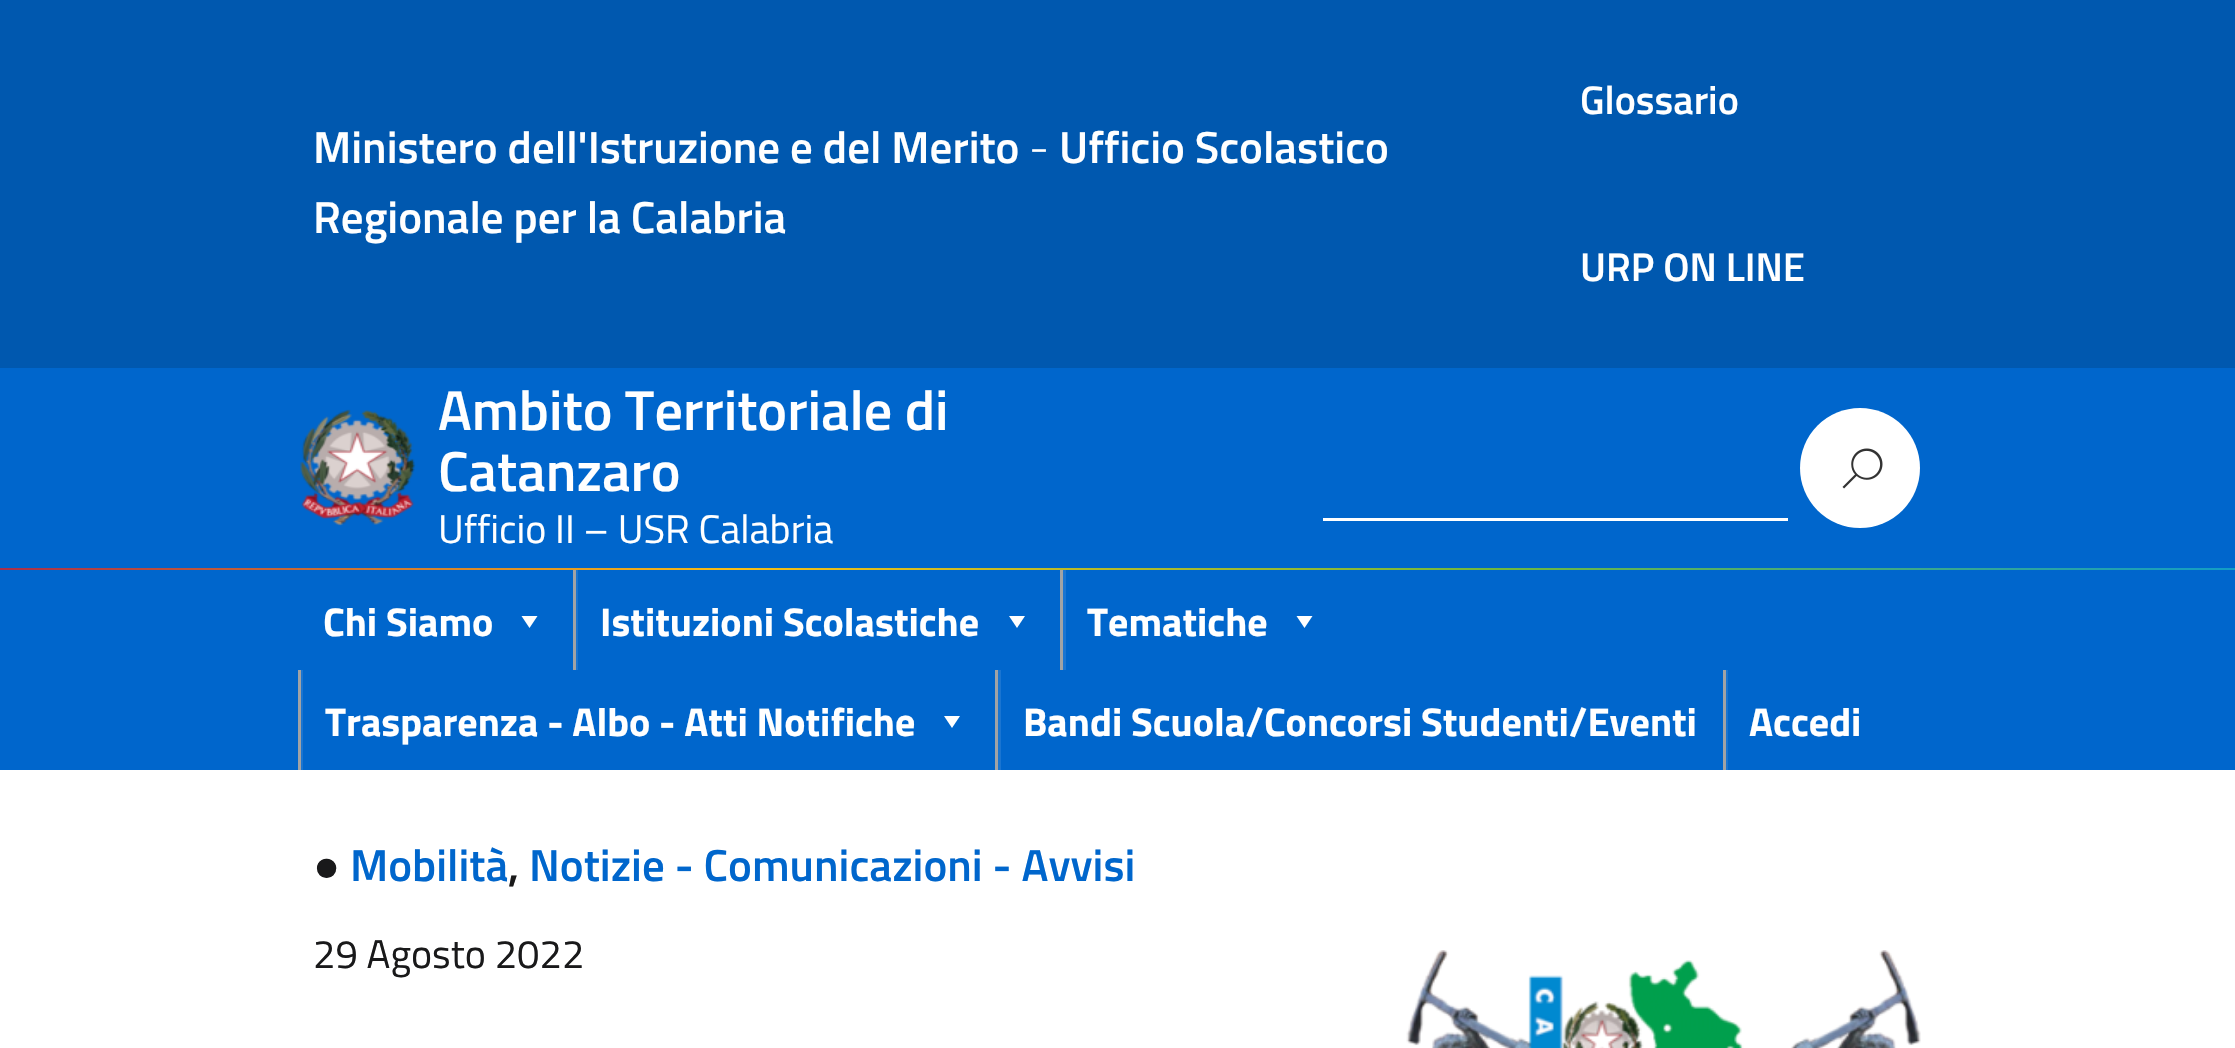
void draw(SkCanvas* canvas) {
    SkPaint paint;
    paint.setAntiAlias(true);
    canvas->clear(0xFFFFFFFF);
    paint.setColor(0xFF0066CC);
    canvas->drawRect(SkRect::MakeXYWH(0, 368, 2235, 200), paint);
    paint.setColor(0xFF0058AF);
    canvas->drawRect(SkRect::MakeXYWH(0, 0, 2235, 368), paint);
    SkFont font1(fontMgr->matchFamilyStyle("Titillium Web", SkFontStyle(600, SkFontStyle::kNormal_Width, SkFontStyle::kUpright_Slant)), 45);
    font1.setSubpixel(true);
    paint.setColor(0xFFFFFFFF);
    canvas->drawString("Ministero dell'Istruzione e del Merito", 313, 163, font1, paint);
    SkFont font2(fontMgr->matchFamilyStyle("Titillium Web", SkFontStyle(300, SkFontStyle::kNormal_Width, SkFontStyle::kUpright_Slant)), 45);
    font2.setSubpixel(true);
    canvas->drawString("-", 1029, 163, font2, paint);
    canvas->drawString("Ufficio Scolastico", 1059, 163, font1, paint);
    canvas->drawString("Regionale per la Calabria", 313, 233, font1, paint);
    SkFont font3(fontMgr->matchFamilyStyle("Titillium Web", SkFontStyle(600, SkFontStyle::kNormal_Width, SkFontStyle::kUpright_Slant)), 40);
    font3.setSubpixel(true);
    canvas->drawString("Glossario", 1580, 114, font3, paint);
    canvas->drawString("URP ON LINE", 1580, 281, font3, paint);
    canvas->drawImageRect(SkImages::DeferredFromEncodedData(SkData::MakeFromFileName("img1.png")), SkRect::MakeXYWH(300, 409, 116, 117), SkSamplingOptions());
    SkFont font4(fontMgr->matchFamilyStyle("Titillium Web", SkFontStyle(600, SkFontStyle::kNormal_Width, SkFontStyle::kUpright_Slant)), 56.25f);
    font4.setSubpixel(true);
    canvas->drawString("Ambito Territoriale di", 438, 430, font4, paint);
    canvas->drawString("Catanzaro", 438, 491, font4, paint);
    SkFont font5(fontMgr->matchFamilyStyle("Titillium Web", SkFontStyle::Normal()), 40);
    font5.setSubpixel(true);
    canvas->drawString("Ufficio II – USR Calabria", 438, 543, font5, paint);
    canvas->drawRect(SkRect::MakeXYWH(1323, 518, 465, 3), paint);
    canvas->drawCircle(1860, 468, 60, paint);
    canvas->drawImageRect(SkImages::DeferredFromEncodedData(SkData::MakeFromFileName("img2.png")), SkRect::MakeXYWH(1842, 448, 41, 41), SkSamplingOptions());
    {
        const SkColor colors[] = {0xFFA92F4A, 0xFFF7BE16, 0xFF6FB83F, 0xFF129DC7};
        const float stops[] = {0, 0.33f, 0.67f, 1};
        const SkPoint ends[] = {{0, 569}, {2235, 569}};
        paint.setShader(SkGradientShader::MakeLinear(ends, colors, stops, 4, SkTileMode::kClamp));
        paint.setAlpha(255);
    }
    canvas->drawRect(SkRect::MakeXYWH(0, 568, 2235, 2), paint);
    paint.setShader(nullptr);
    paint.setColor(0xFF0066CC);
    canvas->drawRect(SkRect::MakeXYWH(0, 570, 2235, 200), paint);
    SkFont font6(fontMgr->matchFamilyStyle("Titillium Web", SkFontStyle::Bold()), 40);
    font6.setSubpixel(true);
    paint.setColor(0xFFFFFFFF);
    canvas->drawString("Chi Siamo", 323, 636, font6, paint);
    canvas->drawPath(SkPathBuilder().moveTo(537.5f, 616).lineTo(529.5f, 628).lineTo(521.5f, 616).close().detach(), paint);
    paint.setColor(0xFF1A75D1);
    canvas->drawRect(SkRect::MakeXYWH(576, 570, 2, 100), paint);
    paint.setColor(0xFFA1A3A5);
    canvas->drawRect(SkRect::MakeXYWH(573, 570, 3, 100), paint);
    paint.setColor(0xFFFFFFFF);
    canvas->drawString("Istituzioni Scolastiche", 600, 636, font6, paint);
    canvas->drawPath(SkPathBuilder().moveTo(1025, 616).lineTo(1017, 628).lineTo(1009, 616).close().detach(), paint);
    paint.setColor(0xFF1A75D1);
    canvas->drawRect(SkRect::MakeXYWH(1063, 570, 3, 100), paint);
    paint.setColor(0xFFA1A3A5);
    canvas->drawRect(SkRect::MakeXYWH(1060, 570, 3, 100), paint);
    paint.setColor(0xFFFFFFFF);
    canvas->drawString("Tematiche", 1087, 636, font6, paint);
    canvas->drawPath(SkPathBuilder().moveTo(1312.5f, 616).lineTo(1304.5f, 628).lineTo(1296.5f, 616).close().detach(), paint);
    paint.setColor(0xFF1A75D1);
    canvas->drawRect(SkRect::MakeXYWH(301, 670, 2, 100), paint);
    paint.setColor(0xFFA1A3A5);
    canvas->drawRect(SkRect::MakeXYWH(298, 670, 3, 100), paint);
    paint.setColor(0xFFFFFFFF);
    canvas->drawString("Trasparenza - Albo - Atti Notifiche", 325, 736, font6, paint);
    canvas->drawPath(SkPathBuilder().moveTo(960, 716).lineTo(952, 728).lineTo(944, 716).close().detach(), paint);
    paint.setColor(0xFF1A75D1);
    canvas->drawRect(SkRect::MakeXYWH(998, 670, 3, 100), paint);
    paint.setColor(0xFFA1A3A5);
    canvas->drawRect(SkRect::MakeXYWH(995, 670, 3, 100), paint);
    paint.setColor(0xFFFFFFFF);
    canvas->drawString("Bandi Scuola/Concorsi Studenti/Eventi", 1023, 736, font6, paint);
    paint.setColor(0xFF1A75D1);
    canvas->drawRect(SkRect::MakeXYWH(1726, 670, 2, 100), paint);
    paint.setColor(0xFFA1A3A5);
    canvas->drawRect(SkRect::MakeXYWH(1723, 670, 3, 100), paint);
    paint.setColor(0xFFFFFFFF);
    canvas->drawString("Accedi", 1749, 736, font6, paint);
    SkFont font7(fontMgr->matchFamilyStyle("Liberation Sans", SkFontStyle::Bold()), 45);
    font7.setSubpixel(true);
    paint.setColor(0xFF19191A);
    canvas->drawString("●", 313, 881, font7, paint);
    paint.setColor(0xFF0066CC);
    canvas->drawString("Mobilità", 350, 881, font1, paint);
    canvas->drawString("Notizie - Comunicazioni - Avvisi", 529, 881, font1, paint);
    paint.setColor(0xFF19191A);
    canvas->drawString(",", 508, 881, font1, paint);
    canvas->drawString("29 Agosto 2022", 313, 968, font5, paint);
    canvas->drawImageRect(SkImages::DeferredFromEncodedData(SkData::MakeFromFileName("img3.png")), SkRect::MakeXYWH(1406, 950, 515, 98), SkSamplingOptions());
}
